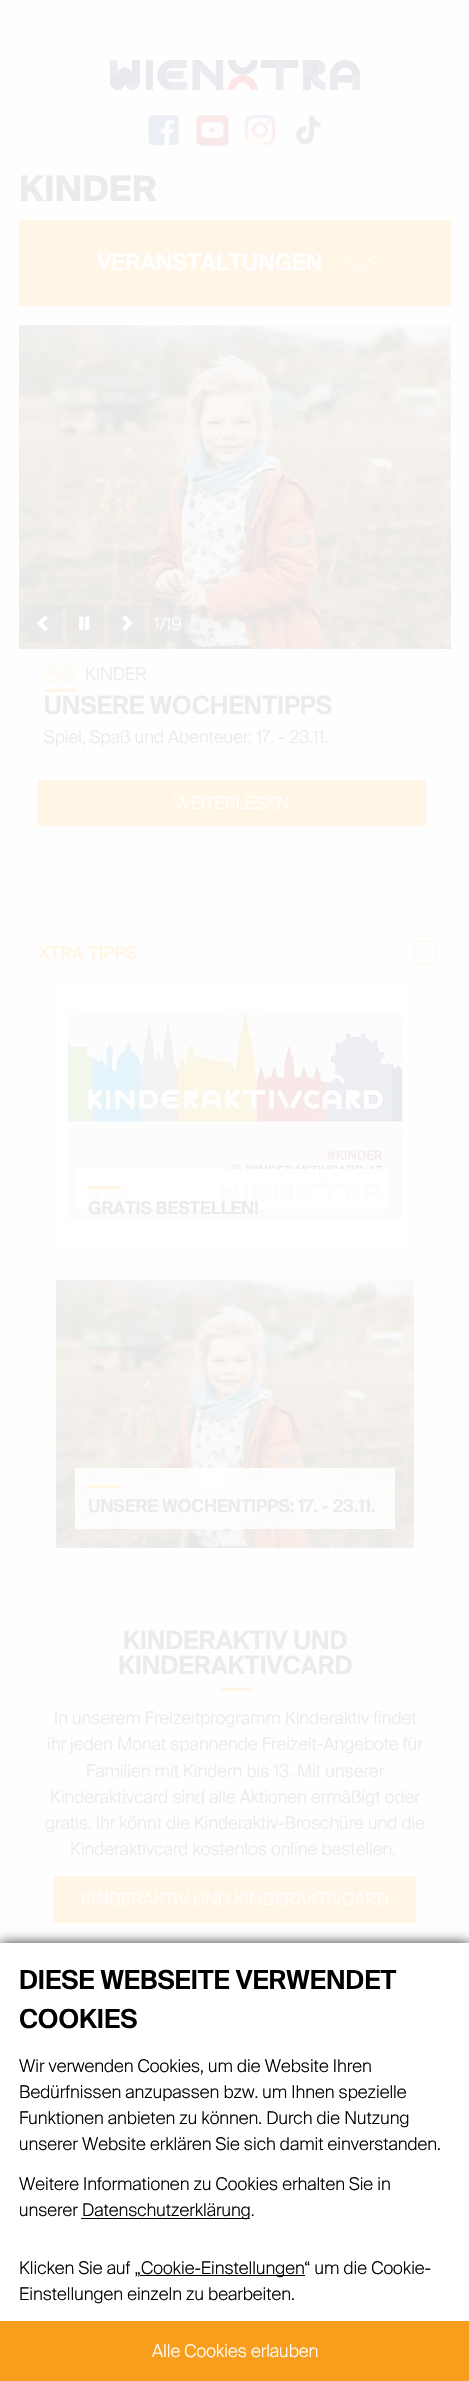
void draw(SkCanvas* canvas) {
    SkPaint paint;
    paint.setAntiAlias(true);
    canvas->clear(0xFFFEFEFE);
    canvas->drawImageRect(SkImages::DeferredFromEncodedData(SkData::MakeFromFileName("img1.png")), SkRect::MakeXYWH(110, 60, 250, 30), SkSamplingOptions());
    canvas->drawImageRect(SkImages::DeferredFromEncodedData(SkData::MakeFromFileName("img2.png")), SkRect::MakeXYWH(148, 114, 31, 32), SkSamplingOptions());
    canvas->drawImageRect(SkImages::DeferredFromEncodedData(SkData::MakeFromFileName("img3.png")), SkRect::MakeXYWH(196, 114, 33, 33), SkSamplingOptions());
    canvas->drawImageRect(SkImages::DeferredFromEncodedData(SkData::MakeFromFileName("img4.png")), SkRect::MakeXYWH(244, 114, 32, 32), SkSamplingOptions());
    canvas->drawImageRect(SkImages::DeferredFromEncodedData(SkData::MakeFromFileName("img5.png")), SkRect::MakeXYWH(295, 115, 27, 30), SkSamplingOptions());
    SkFont font1(fontMgr->matchFamilyStyle("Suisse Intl", SkFontStyle::Bold()), 35);
    font1.setSubpixel(true);
    paint.setColor(0xFFEBEBEB);
    canvas->drawString("KINDER", 19, 201, font1, paint);
    paint.setColor(0xFFFFF6E7);
    canvas->drawRect(SkRect::MakeXYWH(19, 220, 432, 86), paint);
    SkFont font2(fontMgr->matchFamilyStyle("Suisse Intl", SkFontStyle(600, SkFontStyle::kNormal_Width, SkFontStyle::kUpright_Slant)), 22.5f);
    font2.setSubpixel(true);
    paint.setColor(0xFFFFFFFF);
    canvas->drawString("VERANSTALTUNGEN", 97, 270, font2, paint);
    canvas->drawPath(SkPathBuilder().moveTo(378, 253).lineTo(360.5f, 271).lineTo(359.5f, 270).lineTo(377, 252).close().detach(), paint);
    canvas->drawPath(SkPathBuilder().moveTo(361, 270).lineTo(360.5f, 271).lineTo(342.5f, 253).lineTo(343.5f, 252).close().detach(), paint);
    canvas->drawImageRect(SkImages::DeferredFromEncodedData(SkData::MakeFromFileName("img6.png")), SkRect::MakeXYWH(19, 325, 432, 324), SkSamplingOptions());
    paint.setColor(0x80E6E6E6);
    canvas->drawRect(SkRect::MakeXYWH(25, 605, 38, 38), paint);
    canvas->drawImageRect(SkImages::DeferredFromEncodedData(SkData::MakeFromFileName("img7.png")), SkRect::MakeXYWH(37, 615, 11, 17), SkSamplingOptions());
    canvas->drawRect(SkRect::MakeXYWH(66, 605, 38, 38), paint);
    canvas->drawImageRect(SkImages::DeferredFromEncodedData(SkData::MakeFromFileName("img8.png")), SkRect::MakeXYWH(79, 616, 11, 14), SkSamplingOptions());
    canvas->drawRect(SkRect::MakeXYWH(108, 605, 37, 38), paint);
    canvas->drawImageRect(SkImages::DeferredFromEncodedData(SkData::MakeFromFileName("img9.png")), SkRect::MakeXYWH(122, 615, 11, 17), SkSamplingOptions());
    canvas->drawRect(SkRect::MakeXYWH(149, 605, 37, 38), paint);
    SkFont font3(fontMgr->matchFamilyStyle("Suisse Intl", SkFontStyle(300, SkFontStyle::kNormal_Width, SkFontStyle::kUpright_Slant)), 17.5f);
    font3.setSubpixel(true);
    paint.setColor(0xFFFFFFFF);
    canvas->drawString("1/19", 154, 630, font3, paint);
    canvas->drawImageRect(SkImages::DeferredFromEncodedData(SkData::MakeFromFileName("img10.png")), SkRect::MakeXYWH(43, 664, 32, 19), SkSamplingOptions());
    paint.setColor(0xFFEBEBEB);
    canvas->drawString("KINDER", 85, 680, font3, paint);
    paint.setColor(0xFFFFF6E7);
    canvas->drawRect(SkRect::MakeXYWH(44, 689, 32, 3), paint);
    SkFont font4(fontMgr->matchFamilyStyle("Suisse Intl", SkFontStyle(600, SkFontStyle::kNormal_Width, SkFontStyle::kUpright_Slant)), 25);
    font4.setSubpixel(true);
    paint.setColor(0xFFEBEBEB);
    canvas->drawString("UNSERE WOCHENTIPPS", 44, 714, font4, paint);
    canvas->drawString("Spiel, Spaß und Abenteuer: 17. - 23.11.", 44, 743, font3, paint);
    paint.setColor(0xFFFFF6E7);
    canvas->drawRect(SkRect::MakeXYWH(38, 780, 388, 46), paint);
    paint.setColor(0xFFFFFFFF);
    canvas->drawString("WEITERLESEN", 174, 809, font3, paint);
    SkFont font5(fontMgr->matchFamilyStyle("Suisse Intl", SkFontStyle(600, SkFontStyle::kNormal_Width, SkFontStyle::kUpright_Slant)), 17.5f);
    font5.setSubpixel(true);
    paint.setColor(0xFFFFF6E7);
    canvas->drawString("XTRA TIPPS", 38, 959, font5, paint);
    canvas->drawImageRect(SkImages::DeferredFromEncodedData(SkData::MakeFromFileName("img11.png")), SkRect::MakeXYWH(413, 941, 24, 23), SkSamplingOptions());
    paint.setColor(0xFFF1F1F1);
    canvas->drawRect(SkRect::MakeXYWH(56, 981, 358, 268), paint);
    canvas->drawImageRect(SkImages::DeferredFromEncodedData(SkData::MakeFromFileName("img12.png")), SkRect::MakeXYWH(56, 981, 358, 268), SkSamplingOptions());
    paint.setColor(0xD9FFFFFF);
    canvas->drawRect(SkRect::MakeXYWH(75, 1169, 313, 40), paint);
    paint.setColor(0xFFFFF6E7);
    canvas->drawRect(SkRect::MakeXYWH(88, 1186, 32, 3), paint);
    paint.setColor(0xFFEBEBEB);
    canvas->drawString("GRATIS BESTELLEN!", 88, 1214, font5, paint);
    paint.setColor(0xFFF1F1F1);
    canvas->drawRect(SkRect::MakeXYWH(56, 1280, 358, 268), paint);
    canvas->drawImageRect(SkImages::DeferredFromEncodedData(SkData::MakeFromFileName("img13.png")), SkRect::MakeXYWH(56, 1280, 358, 268), SkSamplingOptions());
    paint.setColor(0xD9FFFFFF);
    canvas->drawRect(SkRect::MakeXYWH(75, 1468, 320, 61), paint);
    paint.setColor(0xFFFFF6E7);
    canvas->drawRect(SkRect::MakeXYWH(88, 1485, 32, 3), paint);
    paint.setColor(0xFFEBEBEB);
    canvas->drawString("UNSERE WOCHENTIPPS: 17. - 23.11.", 88, 1512, font5, paint);
    canvas->drawString("KINDERAKTIV UND", 123, 1649, font4, paint);
    canvas->drawString("KINDERAKTIVCARD", 118, 1674, font4, paint);
    paint.setColor(0xFFFFF6E7);
    canvas->drawRect(SkRect::MakeXYWH(219, 1688, 32, 3), paint);
    paint.setColor(0xFFEBEBEB);
    canvas->drawString("In unserem Freizeitprogramm Kinderaktiv findet", 54, 1724, font3, paint);
    canvas->drawString("ihr jeden Monat spannende Freizeit-Angebote für", 47, 1750, font3, paint);
    canvas->drawString("Familien mit Kindern bis 13. Mit unserer", 86, 1777, font3, paint);
    canvas->drawString("Kinderaktivcard sind alle Aktionen ermäßigt oder", 50, 1803, font3, paint);
    canvas->drawString("gratis. Ihr könnt die Kinderaktiv-Broschüre und die", 45, 1829, font3, paint);
    canvas->drawString("Kinderaktivcard kostenlos online bestellen.", 70, 1855, font3, paint);
    paint.setColor(0xFFFFF6E7);
    canvas->drawRect(SkRect::MakeXYWH(54, 1876, 362, 47), paint);
    paint.setColor(0xFFFFFFFF);
    canvas->drawString("KINDERAKTIV UND KINDERAKTIVCARD", 81, 1905, font3, paint);
    paint.setColor(0xCC000000);
    paint.setMaskFilter(SkMaskFilter::MakeBlur(kNormal_SkBlurStyle, 6));
    canvas->drawRect(SkRect::MakeXYWH(0, 1943, 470, 438), paint);
    paint.setMaskFilter(nullptr);
    paint.setColor(0xFFFFFFFF);
    canvas->drawRect(SkRect::MakeXYWH(0, 1943, 469, 378), paint);
    SkFont font6(fontMgr->matchFamilyStyle("Suisse Intl", SkFontStyle(600, SkFontStyle::kNormal_Width, SkFontStyle::kUpright_Slant)), 26.25f);
    font6.setSubpixel(true);
    paint.setColor(0xFF000000);
    canvas->drawString("DIESE WEBSEITE VERWENDET", 19, 1989, font6, paint);
    canvas->drawString("COOKIES", 19, 2028, font6, paint);
    canvas->drawString("Wir verwenden Cookies, um die Website Ihren", 19, 2072, font3, paint);
    canvas->drawString("Bedürfnissen anzupassen bzw. um Ihnen spezielle", 19, 2098, font3, paint);
    canvas->drawString("Funktionen anbieten zu können. Durch die Nutzung", 19, 2124, font3, paint);
    canvas->drawString("unserer Website erklären Sie sich damit einverstanden.", 19, 2150, font3, paint);
    canvas->drawString("Weitere Informationen zu Cookies erhalten Sie in", 19, 2190, font3, paint);
    canvas->drawString("unserer", 19, 2216, font3, paint);
    canvas->drawRect(SkRect::MakeXYWH(81, 2218, 169, 1), paint);
    canvas->drawString("Datenschutzerklärung.", 82, 2216, font3, paint);
    canvas->drawString("Klicken Sie auf „", 19, 2274, font3, paint);
    canvas->drawRect(SkRect::MakeXYWH(140, 2275, 165, 1), paint);
    canvas->drawString("Cookie-Einstellungen", 141, 2274, font3, paint);
    canvas->drawString("“ um die Cookie-", 304, 2274, font3, paint);
    canvas->drawString("Einstellungen einzeln zu bearbeiten.", 19, 2300, font3, paint);
    paint.setColor(0xFFF99D1C);
    canvas->drawRect(SkRect::MakeXYWH(0, 2321, 469, 60), paint);
    paint.setColor(0xFFFFFFFF);
    canvas->drawString("Alle Cookies erlauben", 152, 2357, font3, paint);
}
